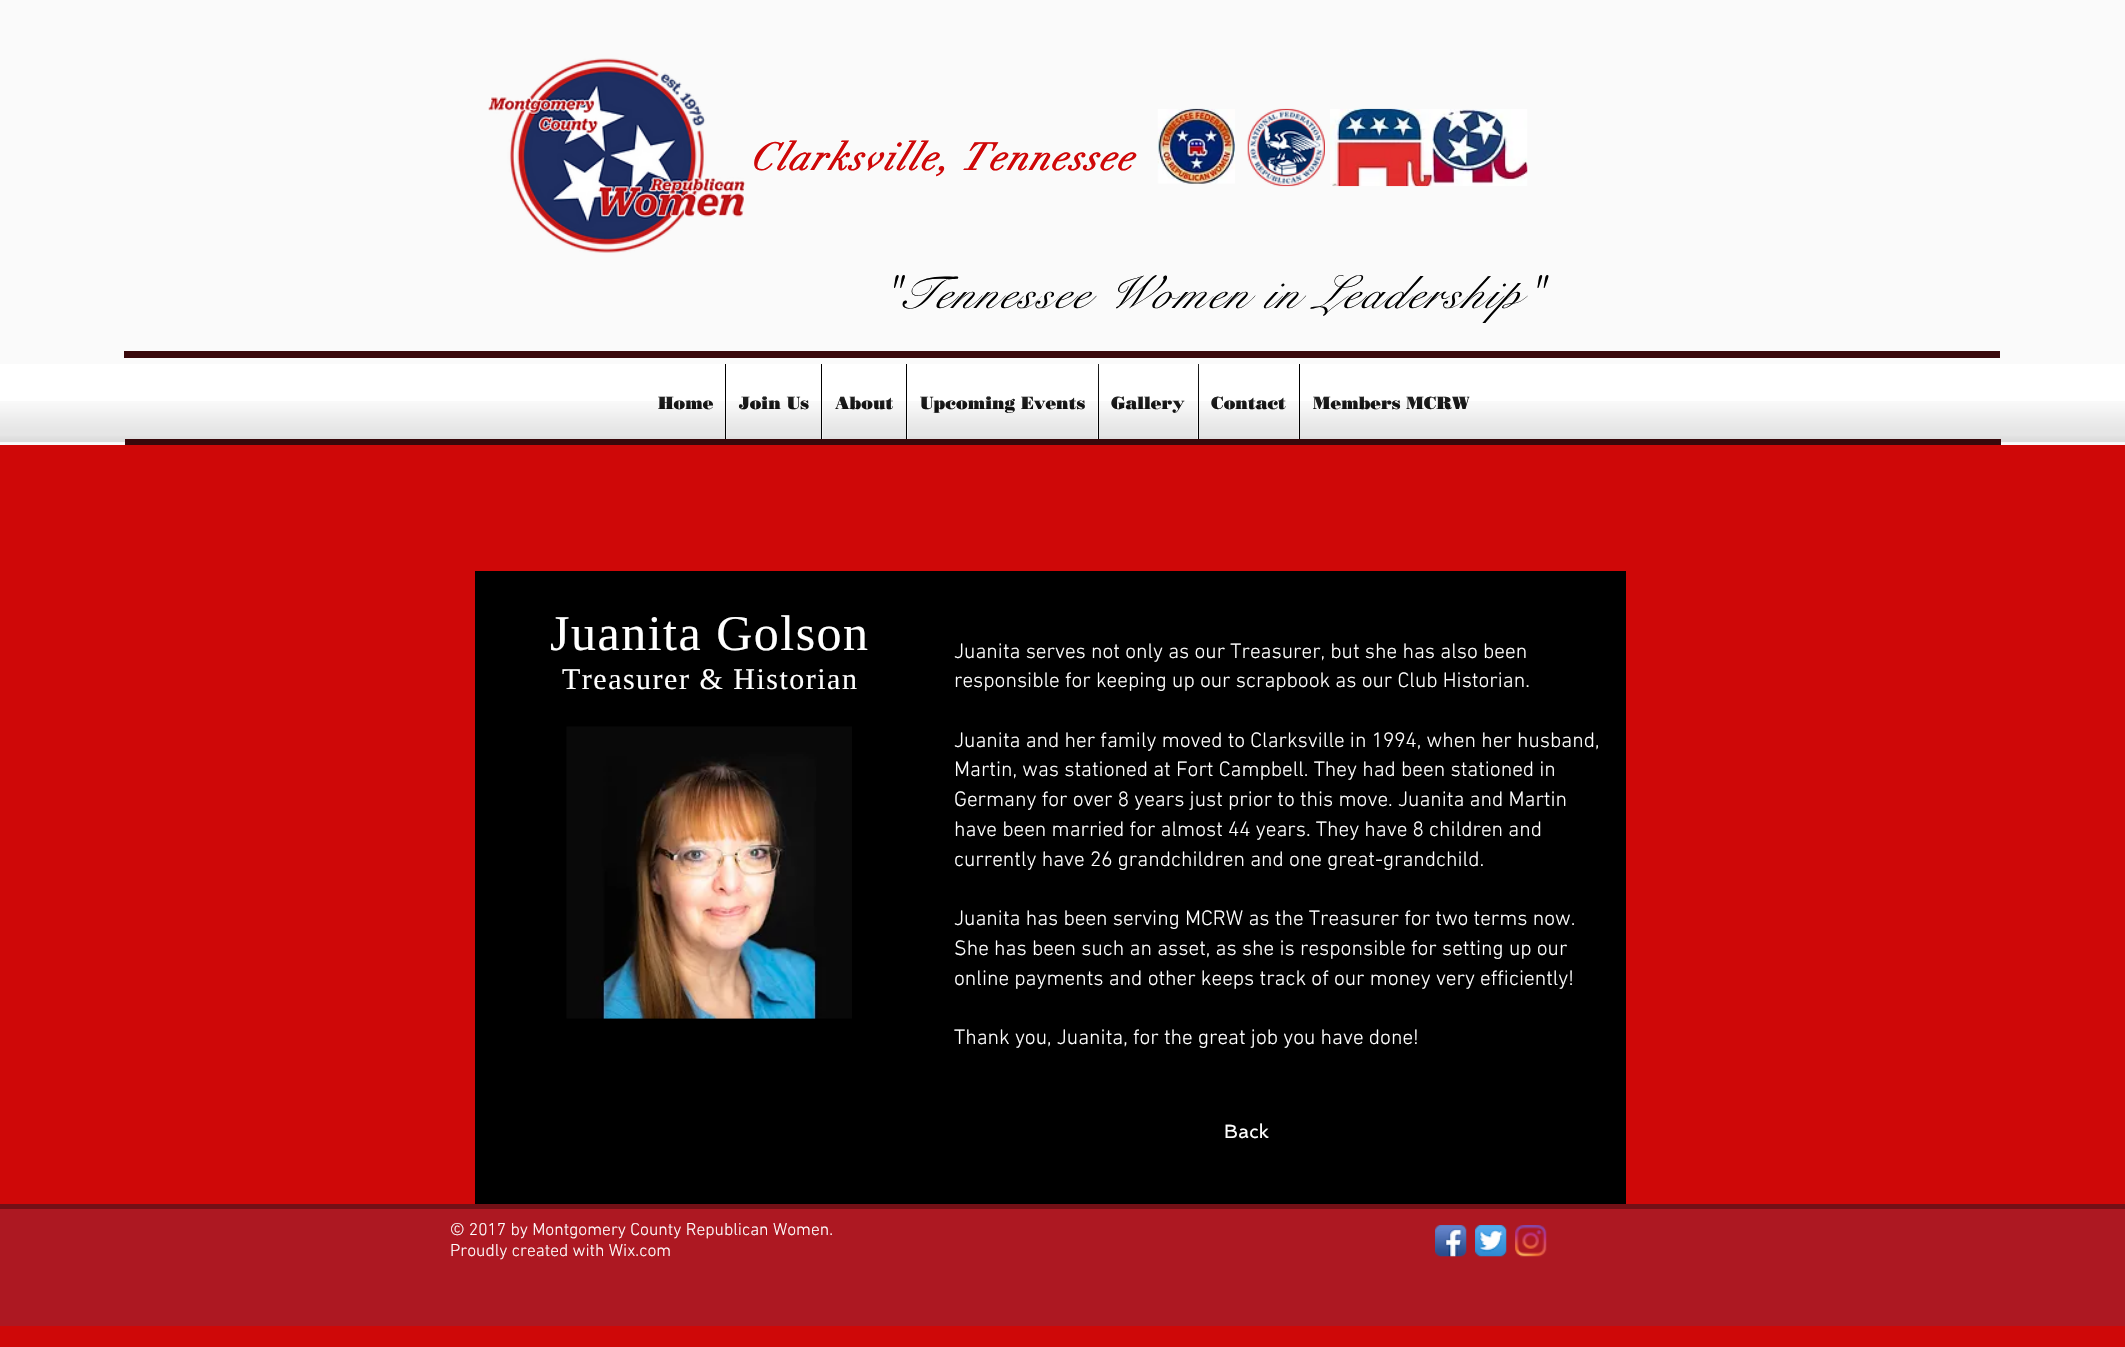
void draw(SkCanvas* canvas) {
    SkPaint paint;
    paint.setAntiAlias(true);
    auto spacedText = [&](const char* s, float x, float y, const SkFont& font, const SkPaint& ink, float letter, float word) {
        std::vector<SkGlyphID> glyphs(font.countText(s, strlen(s), SkTextEncoding::kUTF8));
        std::vector<float> xs(glyphs.size());
        font.textToGlyphs(s, strlen(s), SkTextEncoding::kUTF8, glyphs);
        font.getXPos(glyphs, xs, x);
        float extra = 0;
        for (size_t i = 0; i < glyphs.size(); i++) {
            xs[i] += extra;
            extra += letter + word * (glyphs[i] == font.unicharToGlyph(' '));
        }
        canvas->drawTextBlob(SkTextBlob::MakeFromPosHGlyphs(glyphs, xs, y, font), 0, 0, ink);
    };
    canvas->clear(0xFFCF0808);
    paint.setColor(0xFFFAFAFA);
    canvas->drawRect(SkRect::MakeXYWH(0, 0, 2125, 445), paint);
    canvas->drawImageRect(SkImages::DeferredFromEncodedData(SkData::MakeFromFileName("img1.png")), SkRect::MakeXYWH(488, 58, 258, 195), SkSamplingOptions());
    SkFont font1(fontMgr->matchFamilyStyle("didot", SkFontStyle::BoldItalic()), 37.5f);
    font1.setSubpixel(true);
    paint.setColor(0xFFCF0808);
    spacedText("Clarksville, Tennessee", 750, 170, font1, paint, 1.9f, 0);
    canvas->drawImageRect(SkImages::DeferredFromEncodedData(SkData::MakeFromFileName("img2.png")), SkRect::MakeXYWH(1157, 108, 78, 76), SkSamplingOptions());
    canvas->drawImageRect(SkImages::DeferredFromEncodedData(SkData::MakeFromFileName("img3.png")), SkRect::MakeXYWH(1247, 108, 78, 79), SkSamplingOptions());
    canvas->drawImageRect(SkImages::DeferredFromEncodedData(SkData::MakeFromFileName("img4.png")), SkRect::MakeXYWH(1330, 108, 103, 79), SkSamplingOptions());
    canvas->drawImageRect(SkImages::DeferredFromEncodedData(SkData::MakeFromFileName("img5.png")), SkRect::MakeXYWH(1432, 109, 96, 77), SkSamplingOptions());
    SkFont font2(fontMgr->matchFamilyStyle("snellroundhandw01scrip", SkFontStyle::Italic()), 46.25f);
    font2.setSubpixel(true);
    paint.setColor(0xFF000000);
    spacedText("\"Tennessee Women in Leadership\"", 878, 308, font2, paint, 2.75f, 0);
    paint.setColor(0xFFFFFFFF);
    canvas->drawRect(SkRect::MakeXYWH(0, 364, 2125, 79), paint);
    canvas->drawImageRect(SkImages::DeferredFromEncodedData(SkData::MakeFromFileName("img6.png")), SkRect::MakeXYWH(0, 401, 2125, 42), SkSamplingOptions());
    canvas->drawRect(SkRect::MakeXYWH(645, 401, 80, 38), paint);
    SkFont font3(fontMgr->matchFamilyStyle("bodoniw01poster", SkFontStyle(900, SkFontStyle::kNormal_Width, SkFontStyle::kUpright_Slant)), 17.5f);
    font3.setSubpixel(true);
    paint.setColor(0xFF000000);
    canvas->drawString("Home", 658, 409, font3, paint);
    canvas->drawImageRect(SkImages::DeferredFromEncodedData(SkData::MakeFromFileName("img7.png")), SkRect::MakeXYWH(657, 396, 56, 13), SkSamplingOptions());
    canvas->drawImageRect(SkImages::DeferredFromEncodedData(SkData::MakeFromFileName("img8.png")), SkRect::MakeXYWH(645, 401, 80, 38), SkSamplingOptions());
    paint.setColor(0xFFFFFFFF);
    canvas->drawRect(SkRect::MakeXYWH(726, 401, 95, 38), paint);
    paint.setColor(0xFF000000);
    canvas->drawRect(SkRect::MakeXYWH(725, 364, 1, 79), paint);
    canvas->drawString("Join Us", 739, 409, font3, paint);
    canvas->drawImageRect(SkImages::DeferredFromEncodedData(SkData::MakeFromFileName("img9.png")), SkRect::MakeXYWH(738, 396, 71, 13), SkSamplingOptions());
    canvas->drawImageRect(SkImages::DeferredFromEncodedData(SkData::MakeFromFileName("img10.png")), SkRect::MakeXYWH(726, 401, 95, 38), SkSamplingOptions());
    paint.setColor(0xFFFFFFFF);
    canvas->drawRect(SkRect::MakeXYWH(822, 401, 84, 38), paint);
    paint.setColor(0xFF000000);
    canvas->drawRect(SkRect::MakeXYWH(821, 364, 1, 79), paint);
    canvas->drawString("About", 835, 409, font3, paint);
    canvas->drawImageRect(SkImages::DeferredFromEncodedData(SkData::MakeFromFileName("img11.png")), SkRect::MakeXYWH(836, 396, 58, 13), SkSamplingOptions());
    canvas->drawImageRect(SkImages::DeferredFromEncodedData(SkData::MakeFromFileName("img12.png")), SkRect::MakeXYWH(822, 401, 84, 38), SkSamplingOptions());
    paint.setColor(0xFFFFFFFF);
    canvas->drawRect(SkRect::MakeXYWH(907, 401, 191, 38), paint);
    paint.setColor(0xFF000000);
    canvas->drawRect(SkRect::MakeXYWH(906, 364, 1, 79), paint);
    canvas->drawString("Upcoming Events", 920, 409, font3, paint);
    canvas->drawImageRect(SkImages::DeferredFromEncodedData(SkData::MakeFromFileName("img13.png")), SkRect::MakeXYWH(920, 396, 165, 17), SkSamplingOptions());
    canvas->drawImageRect(SkImages::DeferredFromEncodedData(SkData::MakeFromFileName("img14.png")), SkRect::MakeXYWH(907, 401, 191, 38), SkSamplingOptions());
    paint.setColor(0xFFFFFFFF);
    canvas->drawRect(SkRect::MakeXYWH(1099, 401, 99, 38), paint);
    paint.setColor(0xFF000000);
    canvas->drawRect(SkRect::MakeXYWH(1098, 364, 1, 79), paint);
    canvas->drawString("Gallery", 1111, 409, font3, paint);
    canvas->drawImageRect(SkImages::DeferredFromEncodedData(SkData::MakeFromFileName("img15.png")), SkRect::MakeXYWH(1098, 364, 87, 49), SkSamplingOptions());
    canvas->drawImageRect(SkImages::DeferredFromEncodedData(SkData::MakeFromFileName("img16.png")), SkRect::MakeXYWH(1099, 401, 99, 38), SkSamplingOptions());
    paint.setColor(0xFFFFFFFF);
    canvas->drawRect(SkRect::MakeXYWH(1199, 401, 100, 38), paint);
    paint.setColor(0xFF000000);
    canvas->drawRect(SkRect::MakeXYWH(1198, 364, 1, 79), paint);
    canvas->drawString("Contact", 1211, 409, font3, paint);
    canvas->drawImageRect(SkImages::DeferredFromEncodedData(SkData::MakeFromFileName("img17.png")), SkRect::MakeXYWH(1198, 364, 88, 45), SkSamplingOptions());
    canvas->drawImageRect(SkImages::DeferredFromEncodedData(SkData::MakeFromFileName("img18.png")), SkRect::MakeXYWH(1199, 401, 100, 38), SkSamplingOptions());
    paint.setColor(0xFFFFFFFF);
    canvas->drawRect(SkRect::MakeXYWH(1300, 401, 180, 38), paint);
    paint.setColor(0xFF000000);
    canvas->drawRect(SkRect::MakeXYWH(1299, 364, 1, 79), paint);
    canvas->drawString("Members MCRW", 1313, 409, font3, paint);
    canvas->drawImageRect(SkImages::DeferredFromEncodedData(SkData::MakeFromFileName("img19.png")), SkRect::MakeXYWH(1312, 396, 157, 13), SkSamplingOptions());
    canvas->drawImageRect(SkImages::DeferredFromEncodedData(SkData::MakeFromFileName("img20.png")), SkRect::MakeXYWH(1300, 401, 180, 38), SkSamplingOptions());
    paint.setColor(0xFF39080B);
    canvas->drawRect(SkRect::MakeXYWH(125, 439, 1876, 6), paint);
    canvas->drawRect(SkRect::MakeXYWH(124, 351, 1876, 7), paint);
    paint.setColor(0xFF000000);
    canvas->drawRect(SkRect::MakeXYWH(475, 571, 1151, 633), paint);
    SkFont font4(fontMgr->matchFamilyStyle("Liberation Serif", SkFontStyle::Normal()), 50);
    font4.setSubpixel(true);
    paint.setColor(0xFFFFFFFF);
    spacedText("Juanita Golson", 550, 650, font4, paint, 1.5f, 0);
    SkFont font5(fontMgr->matchFamilyStyle("Liberation Serif", SkFontStyle::Normal()), 30);
    font5.setSubpixel(true);
    spacedText("Treasurer & Historian", 562, 689, font5, paint, 1.5f, 0);
    SkFont font6(fontMgr->matchFamilyStyle("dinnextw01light", SkFontStyle(300, SkFontStyle::kNormal_Width, SkFontStyle::kUpright_Slant)), 21.25f);
    font6.setSubpixel(true);
    canvas->drawString("Juanita serves not only as our Treasurer, but she has also been", 954, 658, font6, paint);
    canvas->drawString("responsible for keeping up our scrapbook as our Club Historian.", 954, 687, font6, paint);
    canvas->drawString("Juanita and her family moved to Clarksville in 1994, when her husband,", 954, 747, font6, paint);
    canvas->drawString("Martin, was stationed at Fort Campbell. They had been stationed in", 954, 776, font6, paint);
    canvas->drawString("Germany for over 8 years just prior to this move. Juanita and Martin", 954, 806, font6, paint);
    canvas->drawString("have been married for almost 44 years. They have 8 children and", 954, 836, font6, paint);
    canvas->drawString("currently have 26 grandchildren and one great-grandchild.", 954, 866, font6, paint);
    canvas->drawString("Juanita has been serving MCRW as the Treasurer for two terms now.", 954, 925, font6, paint);
    canvas->drawString("She has been such an asset, as she is responsible for setting up our", 954, 955, font6, paint);
    canvas->drawString("online payments and other keeps track of our money very efficiently!", 954, 985, font6, paint);
    canvas->drawString("Thank you, Juanita, for the great job you have done!", 954, 1044, font6, paint);
    canvas->drawImageRect(SkImages::DeferredFromEncodedData(SkData::MakeFromFileName("img21.png")), SkRect::MakeXYWH(566, 726, 286, 293), SkSamplingOptions());
    SkFont font7(fontMgr->matchFamilyStyle("Spinnaker", SkFontStyle::Normal()), 19);
    font7.setSubpixel(true);
    canvas->drawString("Back", 1224, 1138, font7, paint);
    paint.setColor(0xFFAD1822);
    canvas->drawRect(SkRect::MakeXYWH(0, 1209, 2125, 117), paint);
    paint.setColor(0xFF731016);
    canvas->drawRect(SkRect::MakeXYWH(0, 1204, 2125, 5), paint);
    SkFont font8(fontMgr->matchFamilyStyle("dinnextw01light", SkFontStyle(300, SkFontStyle::kNormal_Width, SkFontStyle::kUpright_Slant)), 17.5f);
    font8.setSubpixel(true);
    paint.setColor(0xFFFFFFFF);
    canvas->drawString("© 2017 by Montgomery County Republican Women.", 450, 1235, font8, paint);
    canvas->drawString("Proudly created with Wix.com", 450, 1256, font8, paint);
    canvas->drawImageRect(SkImages::DeferredFromEncodedData(SkData::MakeFromFileName("img22.png")), SkRect::MakeXYWH(1435, 1225, 32, 32), SkSamplingOptions());
    canvas->drawImageRect(SkImages::DeferredFromEncodedData(SkData::MakeFromFileName("img23.png")), SkRect::MakeXYWH(1475, 1225, 32, 32), SkSamplingOptions());
    canvas->drawImageRect(SkImages::DeferredFromEncodedData(SkData::MakeFromFileName("img24.png")), SkRect::MakeXYWH(1515, 1225, 32, 32), SkSamplingOptions());
}
